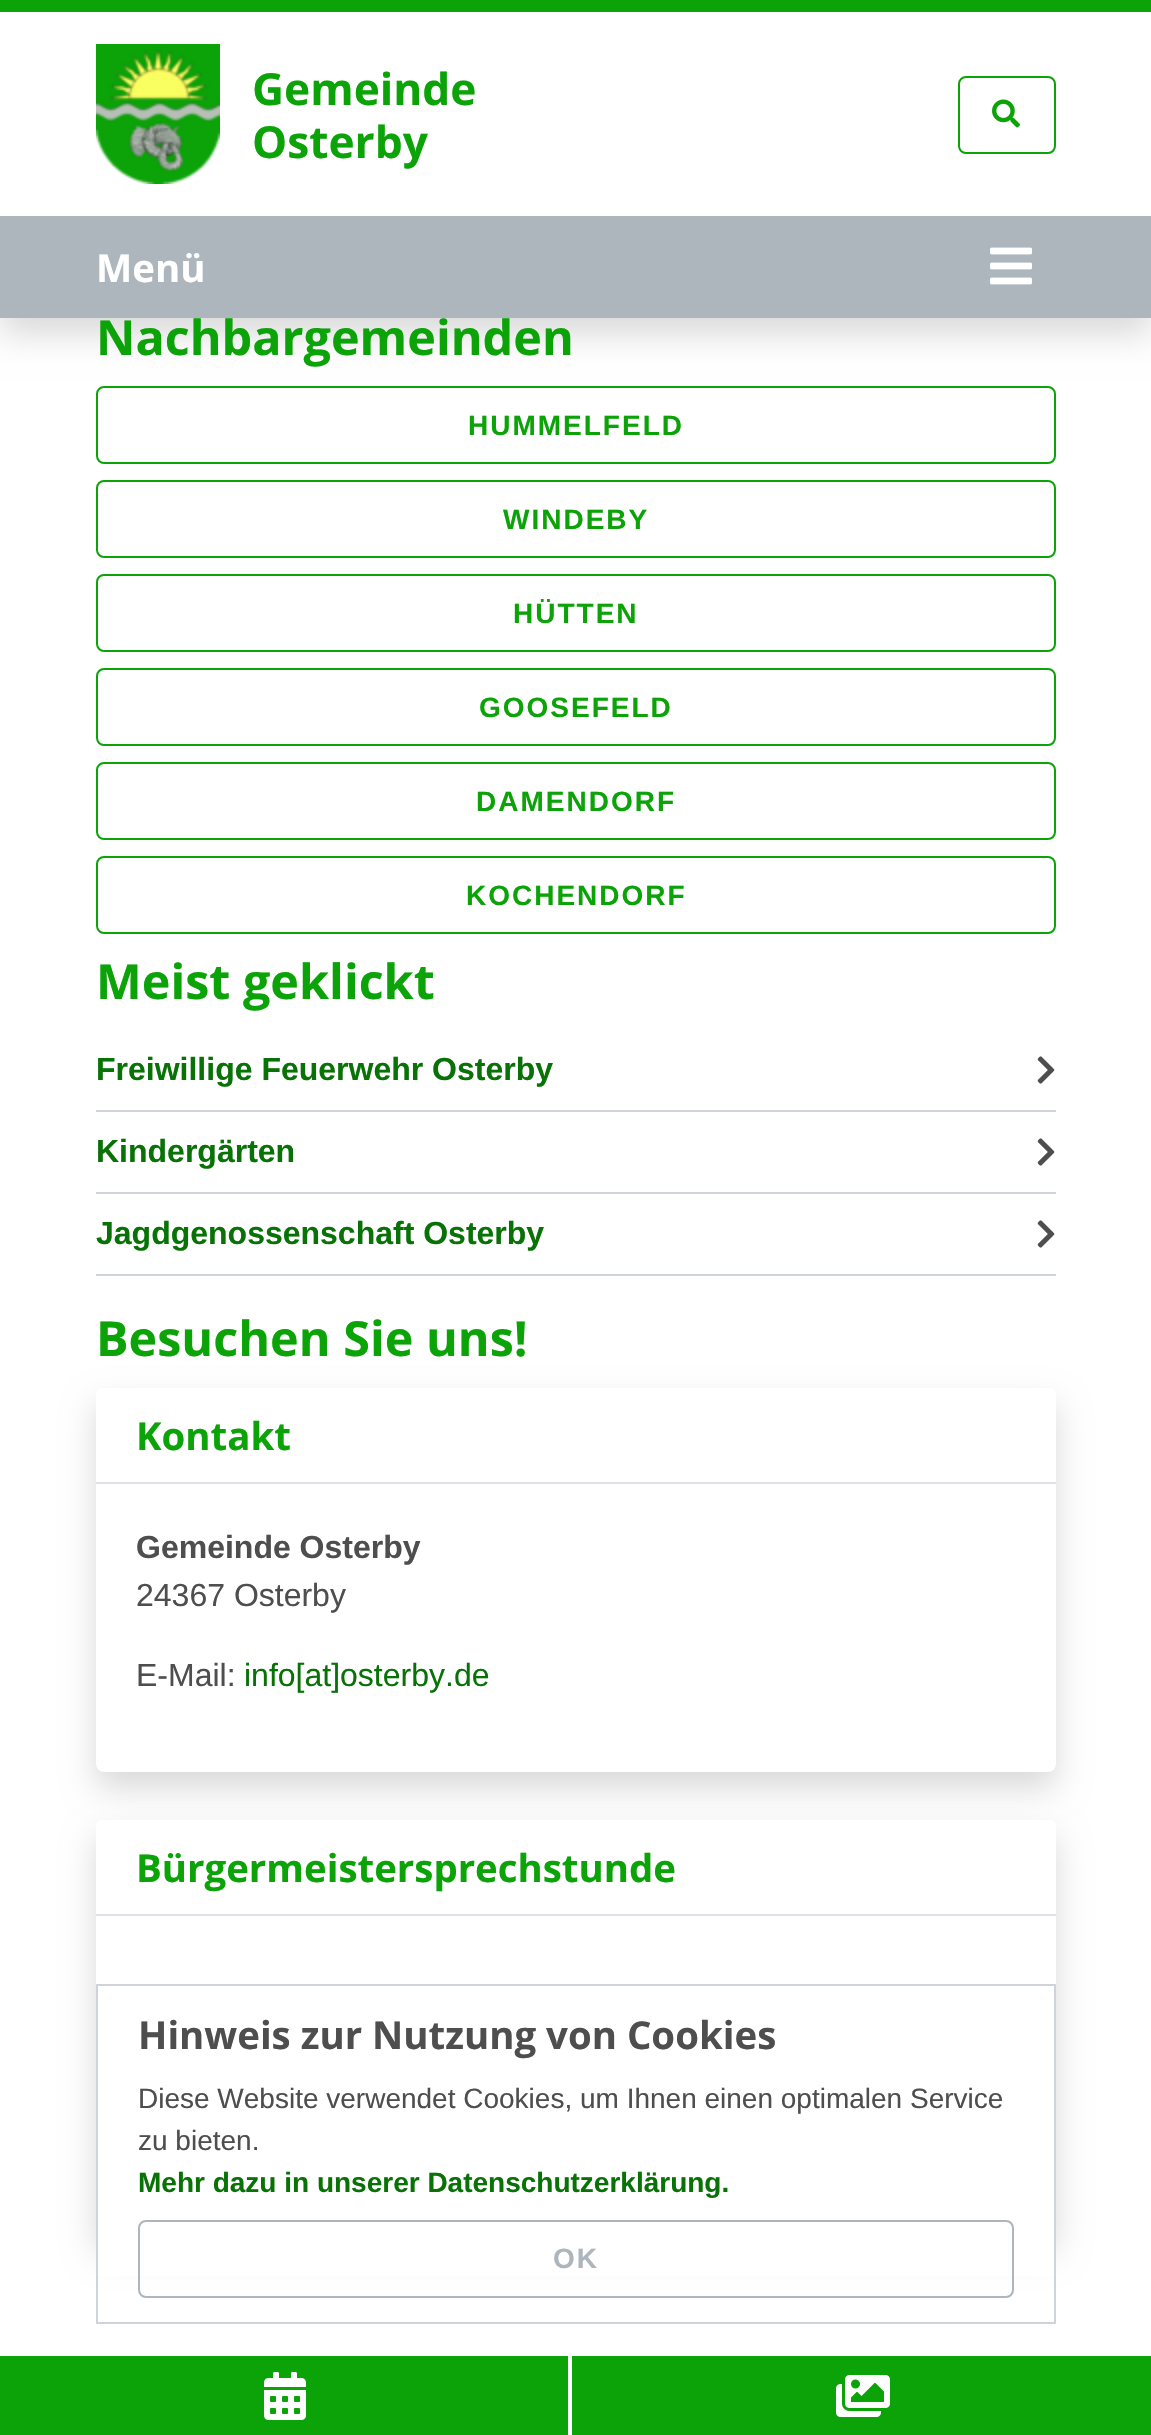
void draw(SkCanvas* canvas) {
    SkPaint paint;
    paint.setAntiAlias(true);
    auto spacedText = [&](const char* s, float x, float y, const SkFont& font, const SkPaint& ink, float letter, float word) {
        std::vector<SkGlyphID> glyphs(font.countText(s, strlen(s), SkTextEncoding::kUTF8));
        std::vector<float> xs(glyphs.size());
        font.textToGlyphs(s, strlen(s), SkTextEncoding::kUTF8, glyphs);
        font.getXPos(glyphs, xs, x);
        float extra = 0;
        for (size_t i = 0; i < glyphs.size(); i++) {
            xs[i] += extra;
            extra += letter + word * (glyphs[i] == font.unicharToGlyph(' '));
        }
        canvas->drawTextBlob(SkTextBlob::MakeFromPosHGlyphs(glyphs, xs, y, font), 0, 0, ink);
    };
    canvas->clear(0xFFFFFFFF);
    paint.setColor(0x26000000);
    paint.setMaskFilter(SkMaskFilter::MakeBlur(kNormal_SkBlurStyle, 16));
    canvas->drawRect(SkRect::MakeXYWH(0, 16, 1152, 318), paint);
    paint.setMaskFilter(nullptr);
    paint.setColor(0xFFFFFFFF);
    canvas->drawRect(SkRect::MakeXYWH(0, 12, 1151, 204), paint);
    paint.setColor(0xFF0CA308);
    canvas->drawRect(SkRect::MakeXYWH(0, 0, 1151, 12), paint);
    canvas->drawImageRect(SkImages::DeferredFromEncodedData(SkData::MakeFromFileName("img1.png")), SkRect::MakeXYWH(96, 44, 124, 140), SkSamplingOptions());
    SkFont font1(fontMgr->matchFamilyStyle("Open Sans", SkFontStyle::Bold()), 44.25f);
    font1.setSubpixel(true);
    canvas->drawString("Gemeinde", 252, 105, font1, paint);
    canvas->drawString("Osterby", 252, 158, font1, paint);
    paint.setStyle(SkPaint::kStroke_Style);
    paint.setStrokeWidth(2);
    canvas->drawRoundRect(SkRect::MakeXYWH(959, 77, 96, 76), 7, 7, paint);
    canvas->drawImageRect(SkImages::DeferredFromEncodedData(SkData::MakeFromFileName("img2.png")), SkRect::MakeXYWH(992, 99, 28, 29), SkSamplingOptions());
    paint.setStyle(SkPaint::kFill_Style);
    paint.setColor(0xFFADB5BD);
    canvas->drawRect(SkRect::MakeXYWH(0, 216, 1151, 102), paint);
    SkFont font2(fontMgr->matchFamilyStyle("Open Sans", SkFontStyle::Bold()), 38.4f);
    font2.setSubpixel(true);
    paint.setColor(0xFFFFFFFF);
    canvas->drawString("Menü", 96, 282, font2, paint);
    canvas->drawImageRect(SkImages::DeferredFromEncodedData(SkData::MakeFromFileName("img3.png")), SkRect::MakeXYWH(990, 247, 42, 38), SkSamplingOptions());
    SkFont font3(fontMgr->matchFamilyStyle("Open Sans", SkFontStyle::Bold()), 48.5f);
    font3.setSubpixel(true);
    paint.setColor(0xFF0CA308);
    canvas->drawString("Nachbargemeinden", 96, 355, font3, paint);
    paint.setStyle(SkPaint::kStroke_Style);
    canvas->drawRoundRect(SkRect::MakeXYWH(97, 387, 958, 76), 7, 7, paint);
    SkFont font4(fontMgr->matchFamilyStyle("Liberation Sans", SkFontStyle::Bold()), 28);
    font4.setSubpixel(true);
    paint.setStyle(SkPaint::kFill_Style);
    spacedText("HUMMELFELD", 468, 435, font4, paint, 2, 0);
    paint.setStyle(SkPaint::kStroke_Style);
    canvas->drawRoundRect(SkRect::MakeXYWH(97, 481, 958, 76), 7, 7, paint);
    paint.setStyle(SkPaint::kFill_Style);
    spacedText("WINDEBY", 503, 529, font4, paint, 2, 0);
    paint.setStyle(SkPaint::kStroke_Style);
    canvas->drawRoundRect(SkRect::MakeXYWH(97, 575, 958, 76), 7, 7, paint);
    paint.setStyle(SkPaint::kFill_Style);
    spacedText("HÜTTEN", 513, 623, font4, paint, 2, 0);
    paint.setStyle(SkPaint::kStroke_Style);
    canvas->drawRoundRect(SkRect::MakeXYWH(97, 669, 958, 76), 7, 7, paint);
    paint.setStyle(SkPaint::kFill_Style);
    spacedText("GOOSEFELD", 479, 717, font4, paint, 2, 0);
    paint.setStyle(SkPaint::kStroke_Style);
    canvas->drawRoundRect(SkRect::MakeXYWH(97, 763, 958, 76), 7, 7, paint);
    paint.setStyle(SkPaint::kFill_Style);
    spacedText("DAMENDORF", 476, 811, font4, paint, 2, 0);
    paint.setStyle(SkPaint::kStroke_Style);
    canvas->drawRoundRect(SkRect::MakeXYWH(97, 857, 958, 76), 7, 7, paint);
    paint.setStyle(SkPaint::kFill_Style);
    spacedText("KOCHENDORF", 466, 905, font4, paint, 2, 0);
    canvas->drawString("Meist geklickt", 96, 999, font3, paint);
    paint.setColor(0xFFCED4DA);
    canvas->drawRect(SkRect::MakeXYWH(96, 1110, 960, 2), paint);
    SkFont font5(fontMgr->matchFamilyStyle("Liberation Sans", SkFontStyle::Bold()), 32);
    font5.setSubpixel(true);
    paint.setColor(0xFF087206);
    canvas->drawString("Freiwillige Feuerwehr Osterby", 96, 1080, font5, paint);
    canvas->drawImageRect(SkImages::DeferredFromEncodedData(SkData::MakeFromFileName("img4.png")), SkRect::MakeXYWH(1037, 1056, 18, 28), SkSamplingOptions());
    paint.setColor(0xFFCED4DA);
    canvas->drawRect(SkRect::MakeXYWH(96, 1192, 960, 2), paint);
    paint.setColor(0xFF087206);
    canvas->drawString("Kindergärten", 96, 1162, font5, paint);
    canvas->drawImageRect(SkImages::DeferredFromEncodedData(SkData::MakeFromFileName("img4.png")), SkRect::MakeXYWH(1037, 1138, 18, 28), SkSamplingOptions());
    paint.setColor(0xFFCED4DA);
    canvas->drawRect(SkRect::MakeXYWH(96, 1274, 960, 2), paint);
    paint.setColor(0xFF087206);
    canvas->drawString("Jagdgenossenschaft Osterby", 96, 1244, font5, paint);
    canvas->drawImageRect(SkImages::DeferredFromEncodedData(SkData::MakeFromFileName("img4.png")), SkRect::MakeXYWH(1037, 1220, 18, 28), SkSamplingOptions());
    paint.setColor(0xFF0CA308);
    canvas->drawString("Besuchen Sie uns!", 96, 1356, font3, paint);
    paint.setColor(0x26000000);
    paint.setMaskFilter(SkMaskFilter::MakeBlur(kNormal_SkBlurStyle, 16));
    canvas->drawRoundRect(SkRect::MakeXYWH(96, 1404, 960, 384), 8, 8, paint);
    paint.setMaskFilter(nullptr);
    paint.setColor(0xFFFFFFFF);
    canvas->drawRoundRect(SkRect::MakeXYWH(96, 1388, 960, 384), 8, 8, paint);
    canvas->drawPath(SkPathBuilder().moveTo(102, 1388).lineTo(1050, 1388).cubicTo(1053.5f, 1388, 1056, 1390.5f, 1056, 1394).lineTo(1056, 1484).lineTo(96, 1484).lineTo(96, 1394).cubicTo(96, 1390.5f, 98.5f, 1388, 102, 1388).close().detach(), paint);
    paint.setColor(0xFFDEE2E6);
    canvas->drawRect(SkRect::MakeXYWH(96, 1482, 960, 2), paint);
    paint.setColor(0xFF0CA308);
    canvas->drawString("Kontakt", 136, 1450, font2, paint);
    paint.setColor(0xFF4E4E4E);
    canvas->drawString("Gemeinde Osterby", 136, 1558, font5, paint);
    SkFont font6(fontMgr->matchFamilyStyle("Liberation Sans", SkFontStyle::Normal()), 32);
    font6.setSubpixel(true);
    canvas->drawString("24367 Osterby", 136, 1606, font6, paint);
    canvas->drawString("E-Mail:", 136, 1686, font6, paint);
    paint.setColor(0xFF087206);
    canvas->drawString("info[at]osterby.de", 244, 1686, font6, paint);
    paint.setColor(0x26000000);
    paint.setMaskFilter(SkMaskFilter::MakeBlur(kNormal_SkBlurStyle, 16));
    canvas->drawRoundRect(SkRect::MakeXYWH(96, 1836, 960, 416), 8, 8, paint);
    paint.setMaskFilter(nullptr);
    paint.setColor(0xFFFFFFFF);
    canvas->drawRoundRect(SkRect::MakeXYWH(96, 1820, 960, 416), 8, 8, paint);
    canvas->drawPath(SkPathBuilder().moveTo(102, 1820).lineTo(1050, 1820).cubicTo(1053.5f, 1820, 1056, 1822.5f, 1056, 1826).lineTo(1056, 1916).lineTo(96, 1916).lineTo(96, 1826).cubicTo(96, 1822.5f, 98.5f, 1820, 102, 1820).close().detach(), paint);
    paint.setColor(0xFFDEE2E6);
    canvas->drawRect(SkRect::MakeXYWH(96, 1914, 960, 2), paint);
    paint.setColor(0xFF0CA308);
    canvas->drawString("Bürgermeistersprechstunde", 136, 1882, font2, paint);
    paint.setColor(0xFFFFFFFF);
    canvas->drawRect(SkRect::MakeXYWH(98, 2233, 956, 43), paint);
    paint.setStyle(SkPaint::kStroke_Style);
    paint.setColor(0xFFCED4DA);
    canvas->drawRect(SkRect::MakeXYWH(97, 1985, 958, 338), paint);
    paint.setStyle(SkPaint::kFill_Style);
    paint.setColor(0xFF4E4E4E);
    canvas->drawString("Hinweis zur Nutzung von Cookies", 138, 2049, font2, paint);
    SkFont font7(fontMgr->matchFamilyStyle("Liberation Sans", SkFontStyle::Normal()), 28);
    font7.setSubpixel(true);
    canvas->drawString("Diese Website verwendet Cookies, um Ihnen einen optimalen Service", 138, 2108, font7, paint);
    canvas->drawString("zu bieten.", 138, 2150, font7, paint);
    paint.setColor(0xFF087206);
    canvas->drawString("Mehr dazu in unserer Datenschutzerklärung.", 138, 2192, font4, paint);
    paint.setStyle(SkPaint::kStroke_Style);
    paint.setColor(0xFFADB5BD);
    canvas->drawRoundRect(SkRect::MakeXYWH(139, 2221, 874, 76), 7, 7, paint);
    paint.setStyle(SkPaint::kFill_Style);
    spacedText("OK", 553, 2268, font4, paint, 2, 0);
    paint.setColor(0xFF0CA308);
    canvas->drawRect(SkRect::MakeXYWH(0, 2356, 568, 79), paint);
    canvas->drawImageRect(SkImages::DeferredFromEncodedData(SkData::MakeFromFileName("img5.png")), SkRect::MakeXYWH(264, 2372, 42, 48), SkSamplingOptions());
    canvas->drawRect(SkRect::MakeXYWH(572, 2356, 579, 79), paint);
    canvas->drawImageRect(SkImages::DeferredFromEncodedData(SkData::MakeFromFileName("img6.png")), SkRect::MakeXYWH(836, 2375, 54, 42), SkSamplingOptions());
}
